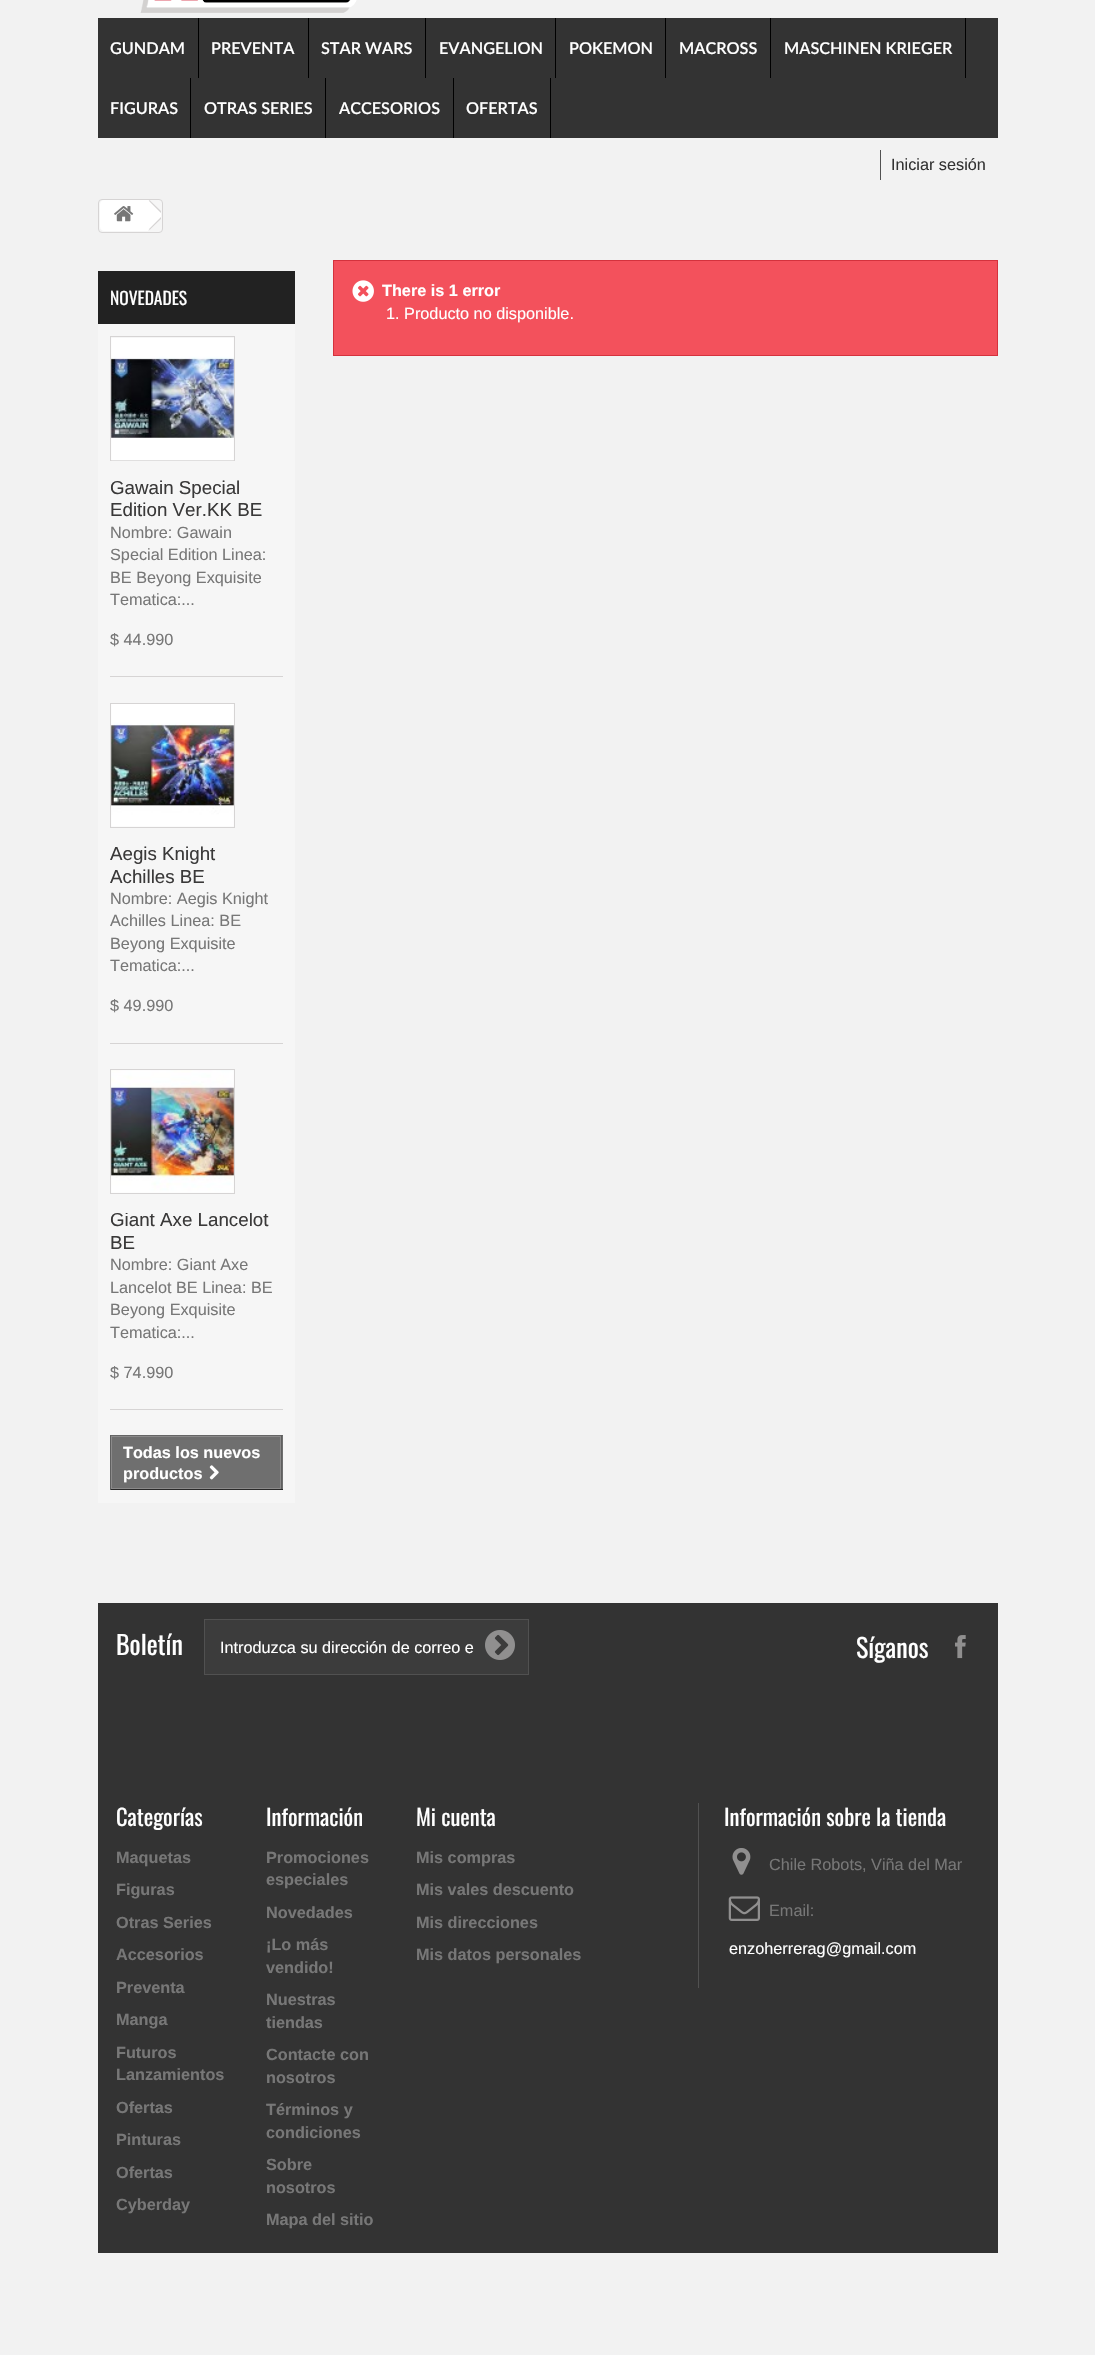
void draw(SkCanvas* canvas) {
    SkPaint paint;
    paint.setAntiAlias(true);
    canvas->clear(0xFFF2F2F2);
    canvas->drawImageRect(SkImages::DeferredFromEncodedData(SkData::MakeFromFileName("img1.png")), SkRect::MakeXYWH(140, 0, 217, 13), SkSamplingOptions());
    paint.setColor(0xFF333333);
    canvas->drawRect(SkRect::MakeXYWH(98, 18, 900, 120), paint);
    paint.setColor(0xFF000000);
    canvas->drawRect(SkRect::MakeXYWH(198, 18, 1, 60), paint);
    SkFont font1(fontMgr->matchFamilyStyle("Lato", SkFontStyle(600, SkFontStyle::kNormal_Width, SkFontStyle::kUpright_Slant)), 16.25f);
    font1.setSubpixel(true);
    paint.setColor(0xFFFFFFFF);
    canvas->drawString("GUNDAM", 110, 54, font1, paint);
    paint.setColor(0xFF000000);
    canvas->drawRect(SkRect::MakeXYWH(308, 18, 1, 60), paint);
    paint.setColor(0xFFFFFFFF);
    canvas->drawString("PREVENTA", 211, 54, font1, paint);
    paint.setColor(0xFF000000);
    canvas->drawRect(SkRect::MakeXYWH(425, 18, 1, 60), paint);
    paint.setColor(0xFFFFFFFF);
    canvas->drawString("STAR WARS", 321, 54, font1, paint);
    paint.setColor(0xFF000000);
    canvas->drawRect(SkRect::MakeXYWH(555, 18, 1, 60), paint);
    paint.setColor(0xFFFFFFFF);
    canvas->drawString("EVANGELION", 439, 54, font1, paint);
    paint.setColor(0xFF000000);
    canvas->drawRect(SkRect::MakeXYWH(665, 18, 1, 60), paint);
    paint.setColor(0xFFFFFFFF);
    canvas->drawString("POKEMON", 569, 54, font1, paint);
    paint.setColor(0xFF000000);
    canvas->drawRect(SkRect::MakeXYWH(770, 18, 1, 60), paint);
    paint.setColor(0xFFFFFFFF);
    canvas->drawString("MACROSS", 679, 54, font1, paint);
    paint.setColor(0xFF000000);
    canvas->drawRect(SkRect::MakeXYWH(965, 18, 1, 60), paint);
    paint.setColor(0xFFFFFFFF);
    canvas->drawString("MASCHINEN KRIEGER", 784, 54, font1, paint);
    paint.setColor(0xFF000000);
    canvas->drawRect(SkRect::MakeXYWH(190, 78, 1, 60), paint);
    paint.setColor(0xFFFFFFFF);
    canvas->drawString("FIGURAS", 110, 114, font1, paint);
    paint.setColor(0xFF000000);
    canvas->drawRect(SkRect::MakeXYWH(325, 78, 1, 60), paint);
    paint.setColor(0xFFFFFFFF);
    canvas->drawString("OTRAS SERIES", 204, 114, font1, paint);
    paint.setColor(0xFF000000);
    canvas->drawRect(SkRect::MakeXYWH(453, 78, 1, 60), paint);
    paint.setColor(0xFFFFFFFF);
    canvas->drawString("ACCESORIOS", 339, 114, font1, paint);
    paint.setColor(0xFF000000);
    canvas->drawRect(SkRect::MakeXYWH(550, 78, 1, 60), paint);
    paint.setColor(0xFFFFFFFF);
    canvas->drawString("OFERTAS", 466, 114, font1, paint);
    paint.setColor(0xFF515151);
    canvas->drawRect(SkRect::MakeXYWH(880, 150, 1, 30), paint);
    SkFont font2(fontMgr->matchFamilyStyle("Liberation Sans", SkFontStyle::Normal()), 16.25f);
    font2.setSubpixel(true);
    paint.setColor(0xFF333333);
    canvas->drawString("Iniciar sesión", 891, 170, font2, paint);
    paint.setColor(0xFFF6F6F6);
    canvas->drawRoundRect(SkRect::MakeXYWH(98.5f, 199.5f, 64, 33), 3.5f, 3.5f, paint);
    paint.setStyle(SkPaint::kStroke_Style);
    paint.setStrokeWidth(1);
    paint.setColor(0xFFD6D4D4);
    canvas->drawRoundRect(SkRect::MakeXYWH(98.5f, 199.5f, 64, 33), 3.5f, 3.5f, paint);
    paint.setStyle(SkPaint::kFill_Style);
    paint.setColor(0xFFFFFFFF);
    canvas->drawPath(SkPathBuilder().moveTo(104, 200).lineTo(148, 200).lineTo(148, 231).lineTo(104, 231).cubicTo(102, 231, 100, 229, 100, 227).lineTo(100, 204).cubicTo(100, 202, 102, 200, 104, 200).close().detach(), paint);
    canvas->drawPath(SkPathBuilder().moveTo(150.5f, 201).lineTo(161, 211.5f).lineTo(161, 219).lineTo(150.5f, 229).cubicTo(149.5f, 230, 148, 230, 147, 229).lineTo(134.5f, 217).cubicTo(133.5f, 216, 133.5f, 214, 134.5f, 213.5f).lineTo(147, 201).cubicTo(148, 200, 149.5f, 200, 150.5f, 201).close().detach(), paint);
    canvas->drawImageRect(SkImages::DeferredFromEncodedData(SkData::MakeFromFileName("img2.png")), SkRect::MakeXYWH(114, 206, 20, 16), SkSamplingOptions());
    paint.setColor(0xFFD6D4D4);
    canvas->drawPath(SkPathBuilder().moveTo(149.5f, 200).lineTo(161, 211).lineTo(161, 213).lineTo(149, 201).close().moveTo(161, 217).lineTo(161, 219).lineTo(149.5f, 230).lineTo(149, 229).close().detach(), paint);
    paint.setColor(0xFF222222);
    canvas->drawRect(SkRect::MakeXYWH(98, 271, 197, 53), paint);
    SkFont font3(fontMgr->matchFamilyStyle("Oswald", SkFontStyle::Normal()), 17.5f);
    font3.setSubpixel(true);
    paint.setColor(0xFFFFFFFF);
    canvas->drawString("NOVEDADES", 110, 305, font3, paint);
    paint.setColor(0xFFF6F6F6);
    canvas->drawRect(SkRect::MakeXYWH(98, 324, 197, 1179), paint);
    paint.setColor(0xFFD6D4D4);
    canvas->drawRect(SkRect::MakeXYWH(110, 676, 173, 1), paint);
    paint.setStyle(SkPaint::kStroke_Style);
    canvas->drawRect(SkRect::MakeXYWH(110.5f, 336.5f, 124, 124), paint);
    canvas->drawImageRect(SkImages::DeferredFromEncodedData(SkData::MakeFromFileName("img3.png")), SkRect::MakeXYWH(111, 338, 123, 123), SkSamplingOptions());
    SkFont font4(fontMgr->matchFamilyStyle("Liberation Sans", SkFontStyle::Normal()), 18.75f);
    font4.setSubpixel(true);
    paint.setStyle(SkPaint::kFill_Style);
    paint.setColor(0xFF3A3939);
    canvas->drawString("Gawain Special", 110, 494, font4, paint);
    canvas->drawString("Edition Ver.KK BE", 110, 516, font4, paint);
    paint.setColor(0xFF777777);
    canvas->drawString("Nombre: Gawain", 110, 538, font2, paint);
    canvas->drawString("Special Edition Linea:", 110, 560, font2, paint);
    canvas->drawString("BE Beyong Exquisite", 110, 583, font2, paint);
    canvas->drawString("Tematica:...", 110, 605, font2, paint);
    canvas->drawString("$ 44.990", 110, 645, font2, paint);
    paint.setColor(0xFFD6D4D4);
    canvas->drawRect(SkRect::MakeXYWH(110, 1043, 173, 1), paint);
    paint.setStyle(SkPaint::kStroke_Style);
    canvas->drawRect(SkRect::MakeXYWH(110.5f, 703.5f, 124, 124), paint);
    canvas->drawImageRect(SkImages::DeferredFromEncodedData(SkData::MakeFromFileName("img4.png")), SkRect::MakeXYWH(111, 704, 123, 123), SkSamplingOptions());
    paint.setStyle(SkPaint::kFill_Style);
    paint.setColor(0xFF3A3939);
    canvas->drawString("Aegis Knight", 110, 860, font4, paint);
    canvas->drawString("Achilles BE", 110, 883, font4, paint);
    paint.setColor(0xFF777777);
    canvas->drawString("Nombre: Aegis Knight", 110, 904, font2, paint);
    canvas->drawString("Achilles Linea: BE", 110, 926, font2, paint);
    canvas->drawString("Beyong Exquisite", 110, 949, font2, paint);
    canvas->drawString("Tematica:...", 110, 971, font2, paint);
    canvas->drawString("$ 49.990", 110, 1011, font2, paint);
    paint.setColor(0xFFD6D4D4);
    canvas->drawRect(SkRect::MakeXYWH(110, 1409, 173, 1), paint);
    paint.setStyle(SkPaint::kStroke_Style);
    canvas->drawRect(SkRect::MakeXYWH(110.5f, 1069.5f, 124, 124), paint);
    canvas->drawImageRect(SkImages::DeferredFromEncodedData(SkData::MakeFromFileName("img5.png")), SkRect::MakeXYWH(111, 1070, 123, 123), SkSamplingOptions());
    canvas->save();
    canvas->clipRect(SkRect::MakeXYWH(110, 1213, 173, 171));
    paint.setStyle(SkPaint::kFill_Style);
    paint.setColor(0xFF3A3939);
    canvas->drawString("Giant Axe Lancelot", 110, 1226, font4, paint);
    canvas->restore();
    canvas->drawString("BE", 110, 1249, font4, paint);
    paint.setColor(0xFF777777);
    canvas->drawString("Nombre: Giant Axe", 110, 1270, font2, paint);
    canvas->drawString("Lancelot BE Linea: BE", 110, 1293, font2, paint);
    canvas->drawString("Beyong Exquisite", 110, 1315, font2, paint);
    canvas->drawString("Tematica:...", 110, 1338, font2, paint);
    canvas->drawString("$ 74.990", 110, 1378, font2, paint);
    paint.setColor(0xFF6F6F6F);
    canvas->drawRect(SkRect::MakeXYWH(112, 1436, 171, 53), paint);
    paint.setColor(0xFF666666);
    canvas->drawRect(SkRect::MakeXYWH(110, 1435, 173, 1), paint);
    paint.setColor(0xFF5F5F5F);
    canvas->drawRect(SkRect::MakeXYWH(281, 1435, 1, 55), paint);
    paint.setColor(0xFF292929);
    canvas->drawRect(SkRect::MakeXYWH(110, 1489, 173, 1), paint);
    paint.setColor(0xFF5F5F5F);
    canvas->drawRect(SkRect::MakeXYWH(110, 1435, 1, 55), paint);
    paint.setStyle(SkPaint::kStroke_Style);
    paint.setColor(0xFF8B8A8A);
    canvas->drawRect(SkRect::MakeXYWH(111.5f, 1436.5f, 169, 52), paint);
    SkFont font5(fontMgr->matchFamilyStyle("Liberation Sans", SkFontStyle::Bold()), 16.25f);
    font5.setSubpixel(true);
    paint.setStyle(SkPaint::kFill_Style);
    paint.setColor(0xFFFFFFFF);
    canvas->drawString("Todas los nuevos", 123, 1458, font5, paint);
    canvas->drawString("productos", 123, 1479, font5, paint);
    canvas->drawImageRect(SkImages::DeferredFromEncodedData(SkData::MakeFromFileName("img6.png")), SkRect::MakeXYWH(209, 1465, 10, 15), SkSamplingOptions());
    paint.setColor(0xFFF3515C);
    canvas->drawRect(SkRect::MakeXYWH(333.5f, 260.5f, 664, 95), paint);
    paint.setStyle(SkPaint::kStroke_Style);
    paint.setColor(0xFFD4323D);
    canvas->drawRect(SkRect::MakeXYWH(333.5f, 260.5f, 664, 95), paint);
    canvas->drawImageRect(SkImages::DeferredFromEncodedData(SkData::MakeFromFileName("img7.png")), SkRect::MakeXYWH(352, 280, 22, 22), SkSamplingOptions());
    paint.setStyle(SkPaint::kFill_Style);
    paint.setColor(0xFFFFFFFF);
    canvas->drawString("There is 1 error", 382, 296, font5, paint);
    canvas->drawString("1. Producto no disponible.", 386, 319, font2, paint);
    paint.setColor(0xFF333333);
    canvas->drawRect(SkRect::MakeXYWH(98, 1603, 900, 650), paint);
    SkFont font6(fontMgr->matchFamilyStyle("Oswald", SkFontStyle::Normal()), 26);
    font6.setSubpixel(true);
    paint.setColor(0xFFFFFFFF);
    canvas->drawString("Boletín", 116, 1655, font6, paint);
    paint.setColor(0xFF3C3C3C);
    canvas->drawRect(SkRect::MakeXYWH(204.5f, 1619.5f, 324, 55), paint);
    paint.setStyle(SkPaint::kStroke_Style);
    paint.setColor(0xFF515151);
    canvas->drawRect(SkRect::MakeXYWH(204.5f, 1619.5f, 324, 55), paint);
    paint.setStyle(SkPaint::kFill_Style);
    paint.setColor(0xFFFFFFFF);
    canvas->drawString("Introduzca su dirección de correo e", 220, 1653, font2, paint);
    canvas->drawImageRect(SkImages::DeferredFromEncodedData(SkData::MakeFromFileName("img8.png")), SkRect::MakeXYWH(485, 1630, 30, 30), SkSamplingOptions());
    canvas->drawString("Síganos", 856, 1658, font6, paint);
    canvas->drawImageRect(SkImages::DeferredFromEncodedData(SkData::MakeFromFileName("img9.png")), SkRect::MakeXYWH(955, 1635, 11, 24), SkSamplingOptions());
    SkFont font7(fontMgr->matchFamilyStyle("Oswald", SkFontStyle::Normal()), 22.5f);
    font7.setSubpixel(true);
    canvas->drawString("Categorías", 116, 1826, font7, paint);
    paint.setColor(0xFF777777);
    canvas->drawString("Maquetas", 116, 1863, font5, paint);
    canvas->drawString("Figuras", 116, 1895, font5, paint);
    canvas->drawString("Otras Series", 116, 1928, font5, paint);
    canvas->drawString("Accesorios", 116, 1960, font5, paint);
    canvas->drawString("Preventa", 116, 1993, font5, paint);
    canvas->drawString("Manga", 116, 2025, font5, paint);
    canvas->drawString("Futuros", 116, 2058, font5, paint);
    canvas->drawString("Lanzamientos", 116, 2080, font5, paint);
    canvas->drawString("Ofertas", 116, 2113, font5, paint);
    canvas->drawString("Pinturas", 116, 2145, font5, paint);
    canvas->drawString("Ofertas", 116, 2178, font5, paint);
    canvas->drawString("Cyberday", 116, 2210, font5, paint);
    paint.setColor(0xFFFFFFFF);
    canvas->drawString("Información", 266, 1826, font7, paint);
    paint.setColor(0xFF777777);
    canvas->drawString("Promociones", 266, 1863, font5, paint);
    canvas->drawString("especiales", 266, 1885, font5, paint);
    canvas->drawString("Novedades", 266, 1918, font5, paint);
    canvas->drawString("¡Lo más", 266, 1950, font5, paint);
    canvas->drawString("vendido!", 266, 1973, font5, paint);
    canvas->drawString("Nuestras", 266, 2005, font5, paint);
    canvas->drawString("tiendas", 266, 2028, font5, paint);
    canvas->drawString("Contacte con", 266, 2060, font5, paint);
    canvas->drawString("nosotros", 266, 2083, font5, paint);
    canvas->drawString("Términos y", 266, 2115, font5, paint);
    canvas->drawString("condiciones", 266, 2138, font5, paint);
    canvas->drawString("Sobre", 266, 2170, font5, paint);
    canvas->drawString("nosotros", 266, 2193, font5, paint);
    canvas->drawString("Mapa del sitio", 266, 2225, font5, paint);
    paint.setColor(0xFFFFFFFF);
    canvas->drawString("Mi cuenta", 416, 1826, font7, paint);
    paint.setColor(0xFF777777);
    canvas->drawString("Mis compras", 416, 1863, font5, paint);
    canvas->drawString("Mis vales descuento", 416, 1895, font5, paint);
    canvas->drawString("Mis direcciones", 416, 1928, font5, paint);
    canvas->drawString("Mis datos personales", 416, 1960, font5, paint);
    paint.setColor(0xFF515151);
    canvas->drawRect(SkRect::MakeXYWH(698, 1803, 1, 185), paint);
    paint.setColor(0xFFFFFFFF);
    canvas->drawString("Información sobre la tienda", 724, 1826, font7, paint);
    canvas->drawImageRect(SkImages::DeferredFromEncodedData(SkData::MakeFromFileName("img10.png")), SkRect::MakeXYWH(732, 1848, 19, 27), SkSamplingOptions());
    paint.setColor(0xFF777777);
    canvas->drawString("Chile Robots, Viña del Mar", 769, 1870, font2, paint);
    canvas->drawImageRect(SkImages::DeferredFromEncodedData(SkData::MakeFromFileName("img11.png")), SkRect::MakeXYWH(728, 1896, 32, 25), SkSamplingOptions());
    canvas->drawString("Email:", 769, 1916, font2, paint);
    paint.setColor(0xFFFFFFFF);
    canvas->drawString("enzoherrerag@gmail.com", 729, 1954, font2, paint);
}
